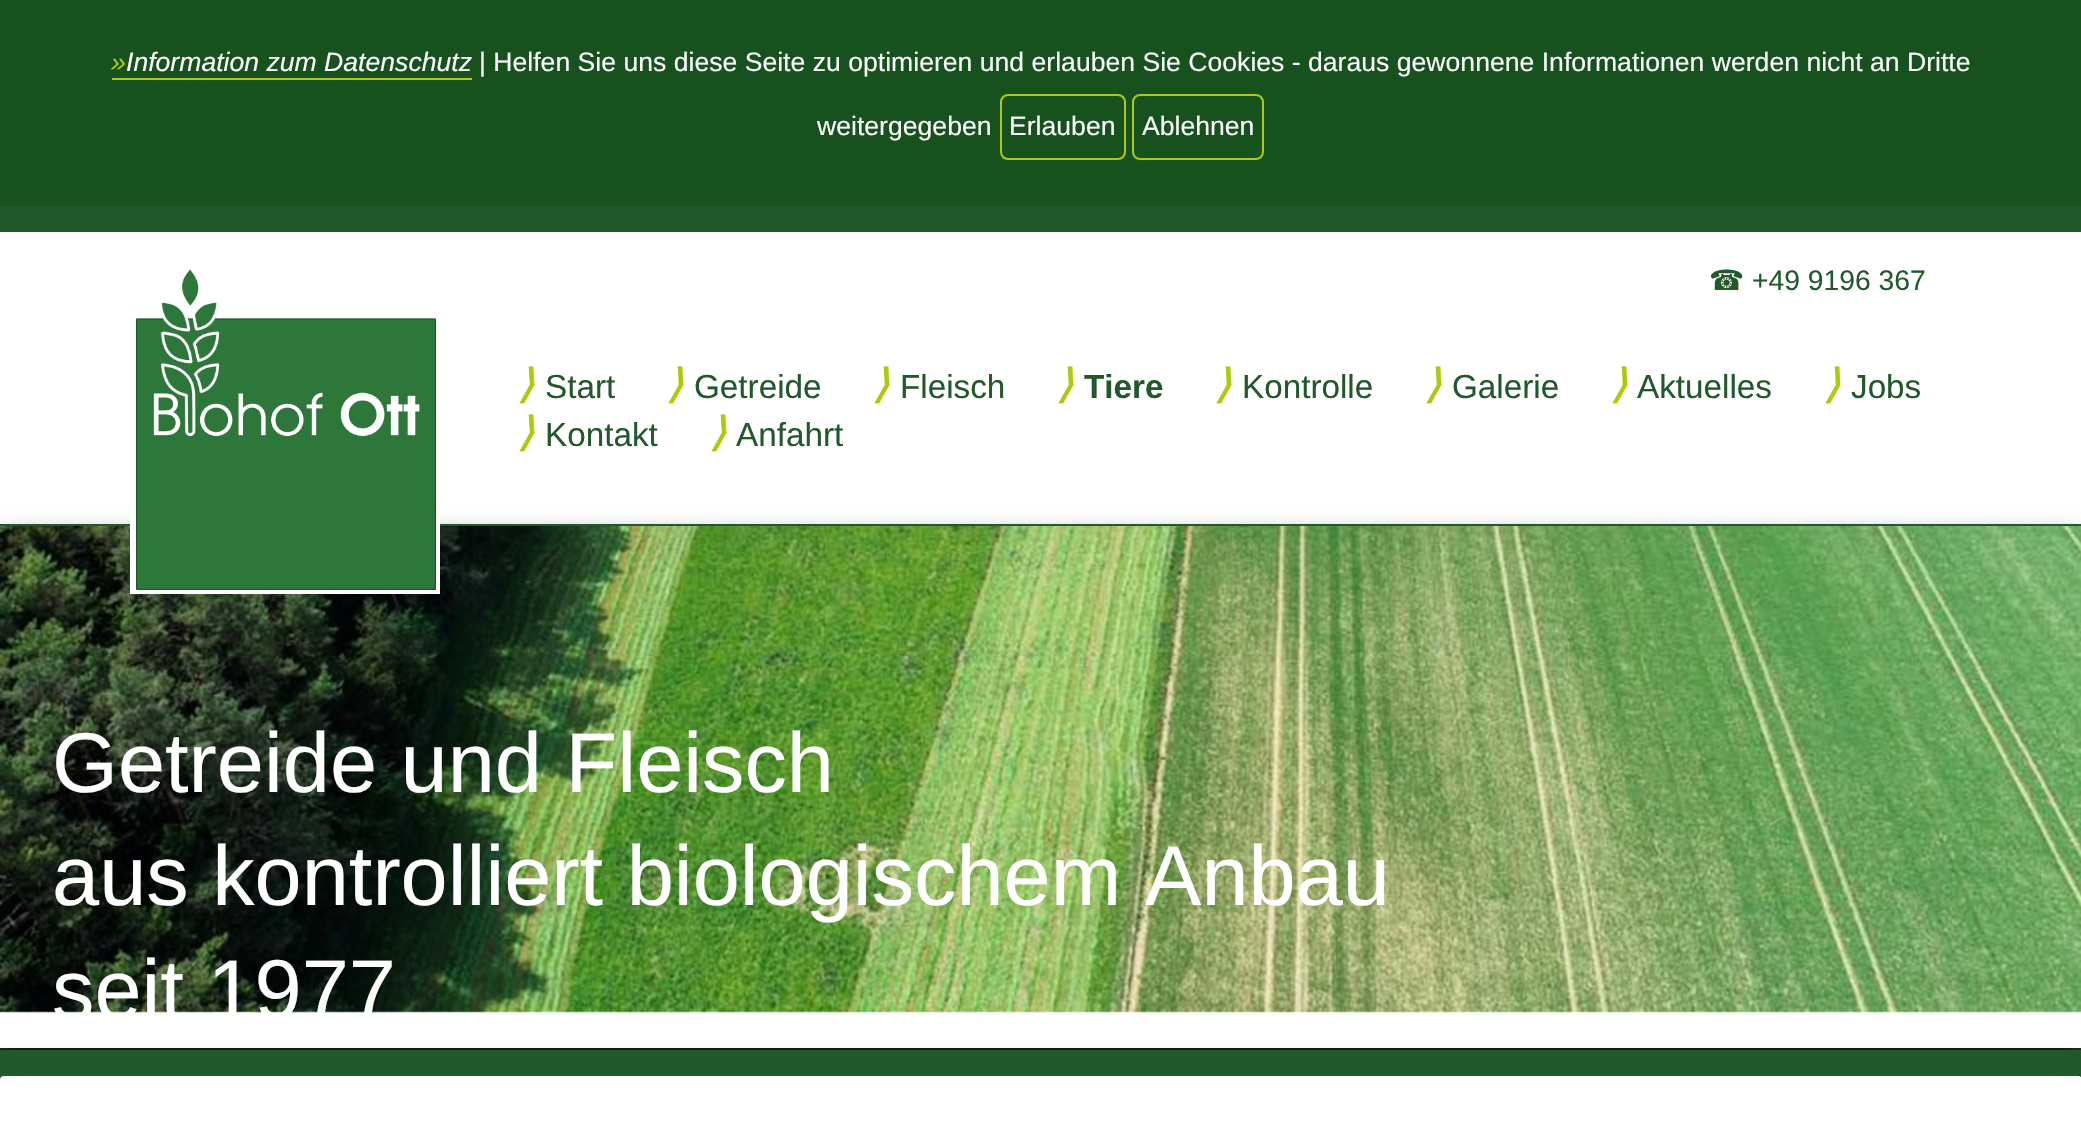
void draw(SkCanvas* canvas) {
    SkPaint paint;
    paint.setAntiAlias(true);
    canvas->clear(0xFF16511E);
    SkFont font1(fontMgr->matchFamilyStyle("Liberation Sans", SkFontStyle::Italic()), 26.6f);
    font1.setSubpixel(true);
    paint.setColor(0xFFAFCA0B);
    canvas->drawString("»", 111, 71, font1, paint);
    canvas->drawRect(SkRect::MakeXYWH(112, 78, 360, 2), paint);
    paint.setColor(0xFFFFFFFF);
    canvas->drawString("Information zum Datenschutz", 126, 71, font1, paint);
    SkFont font2(fontMgr->matchFamilyStyle("Liberation Sans", SkFontStyle::Normal()), 26.6f);
    font2.setSubpixel(true);
    canvas->drawString("| Helfen Sie uns diese Seite zu optimieren und erlauben Sie Cookies - daraus gewonnene Informationen werden nicht an Dritte", 479, 71, font2, paint);
    canvas->drawString("weitergegeben", 817, 135, font2, paint);
    paint.setStyle(SkPaint::kStroke_Style);
    paint.setStrokeWidth(2);
    paint.setColor(0xFFAFCA0B);
    canvas->drawRoundRect(SkRect::MakeXYWH(1001, 95, 124, 64), 7, 7, paint);
    paint.setStyle(SkPaint::kFill_Style);
    paint.setColor(0xFFFFFFFF);
    canvas->drawString("Erlauben", 1009, 135, font2, paint);
    paint.setStyle(SkPaint::kStroke_Style);
    paint.setColor(0xFFAFCA0B);
    canvas->drawRoundRect(SkRect::MakeXYWH(1133, 95, 130, 64), 7, 7, paint);
    paint.setStyle(SkPaint::kFill_Style);
    paint.setColor(0xFFFFFFFF);
    canvas->drawString("Ablehnen", 1142, 135, font2, paint);
    canvas->drawRect(SkRect::MakeXYWH(0, 232, 2081, 816), paint);
    paint.setColor(0xFF16411E);
    canvas->drawRect(SkRect::MakeXYWH(0, 1048, 2081, 2), paint);
    paint.setColor(0xFF22592C);
    canvas->drawRect(SkRect::MakeXYWH(0, 206, 2081, 26), paint);
    SkFont font3(fontMgr->matchFamilyStyle("DejaVu Sans", SkFontStyle::Normal()), 28.25f);
    font3.setSubpixel(true);
    canvas->drawString("☎", 1709, 290, font3, paint);
    SkFont font4(fontMgr->matchFamilyStyle("Liberation Sans", SkFontStyle::Normal()), 28.25f);
    font4.setSubpixel(true);
    canvas->drawString("+49 9196 367", 1752, 290, font4, paint);
    canvas->save();
    canvas->clipPath(SkPathBuilder(SkPathFillType::kEvenOdd).moveTo(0, 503).lineTo(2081, 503).lineTo(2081, 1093).lineTo(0, 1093).close().moveTo(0, 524).lineTo(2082, 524).lineTo(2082, 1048).lineTo(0, 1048).close().detach(), true);
    paint.setColor(0xBF000000);
    paint.setMaskFilter(SkMaskFilter::MakeBlur(kNormal_SkBlurStyle, 12));
    canvas->drawRect(SkRect::MakeXYWH(2, 540, 2074, 516), paint);
    paint.setMaskFilter(nullptr);
    canvas->restore();
    canvas->drawImageRect(SkImages::DeferredFromEncodedData(SkData::MakeFromFileName("img2.png")), SkRect::MakeXYWH(0, 526, 2081, 487), SkSamplingOptions());
    paint.setColor(0xFF22592C);
    canvas->drawRect(SkRect::MakeXYWH(0, 524, 2081, 2), paint);
    paint.setColor(0xFFFFFFFF);
    canvas->drawRect(SkRect::MakeXYWH(130, 513, 310, 81), paint);
    canvas->drawImageRect(SkImages::DeferredFromEncodedData(SkData::MakeFromFileName("img1.png")), SkRect::MakeXYWH(136, 269, 300, 321), SkSamplingOptions());
    SkFont font5(fontMgr->matchFamilyStyle("DejaVu Sans", SkFontStyle::BoldItalic()), 40);
    font5.setSubpixel(true);
    paint.setColor(0xFFAFCA0B);
    canvas->drawString("⟩", 518, 398, font5, paint);
    SkFont font6(fontMgr->matchFamilyStyle("Liberation Sans", SkFontStyle::Normal()), 33.25f);
    font6.setSubpixel(true);
    paint.setColor(0xFF22592C);
    canvas->drawString("Start", 545, 398, font6, paint);
    paint.setColor(0xFFAFCA0B);
    canvas->drawString("⟩", 667, 398, font5, paint);
    paint.setColor(0xFF22592C);
    canvas->drawString("Getreide", 694, 398, font6, paint);
    paint.setColor(0xFFAFCA0B);
    canvas->drawString("⟩", 873, 398, font5, paint);
    paint.setColor(0xFF22592C);
    canvas->drawString("Fleisch", 900, 398, font6, paint);
    paint.setColor(0xFFAFCA0B);
    canvas->drawString("⟩", 1057, 398, font5, paint);
    SkFont font7(fontMgr->matchFamilyStyle("Liberation Sans", SkFontStyle::Bold()), 33.25f);
    font7.setSubpixel(true);
    paint.setColor(0xFF22592C);
    canvas->drawString("Tiere", 1084, 398, font7, paint);
    paint.setColor(0xFFAFCA0B);
    canvas->drawString("⟩", 1215, 398, font5, paint);
    paint.setColor(0xFF22592C);
    canvas->drawString("Kontrolle", 1242, 398, font6, paint);
    paint.setColor(0xFFAFCA0B);
    canvas->drawString("⟩", 1425, 398, font5, paint);
    paint.setColor(0xFF22592C);
    canvas->drawString("Galerie", 1452, 398, font6, paint);
    paint.setColor(0xFFAFCA0B);
    canvas->drawString("⟩", 1611, 398, font5, paint);
    paint.setColor(0xFF22592C);
    canvas->drawString("Aktuelles", 1637, 398, font6, paint);
    paint.setColor(0xFFAFCA0B);
    canvas->drawString("⟩", 1824, 398, font5, paint);
    paint.setColor(0xFF22592C);
    canvas->drawString("Jobs", 1851, 398, font6, paint);
    paint.setColor(0xFFAFCA0B);
    canvas->drawString("⟩", 518, 446, font5, paint);
    paint.setColor(0xFF22592C);
    canvas->drawString("Kontakt", 545, 446, font6, paint);
    paint.setColor(0xFFAFCA0B);
    canvas->drawString("⟩", 710, 446, font5, paint);
    paint.setColor(0xFF22592C);
    canvas->drawString("Anfahrt", 736, 446, font6, paint);
    SkFont font8(fontMgr->matchFamilyStyle("Liberation Sans", SkFontStyle::Normal()), 84.75f);
    font8.setSubpixel(true);
    paint.setColor(0xFFFFFFFF);
    canvas->drawString("Getreide und Fleisch", 52, 792, font8, paint);
    canvas->drawString("aus kontrolliert biologischem Anbau", 52, 905, font8, paint);
    canvas->drawString("seit 1977", 52, 1019, font8, paint);
    paint.setColor(0xFF22592C);
    canvas->drawRect(SkRect::MakeXYWH(0, 1050, 2081, 30), paint);
    paint.setColor(0xFFFFFFFF);
    canvas->drawRoundRect(SkRect::MakeXYWH(0, 1076, 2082, 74), 4, 4, paint);
}
